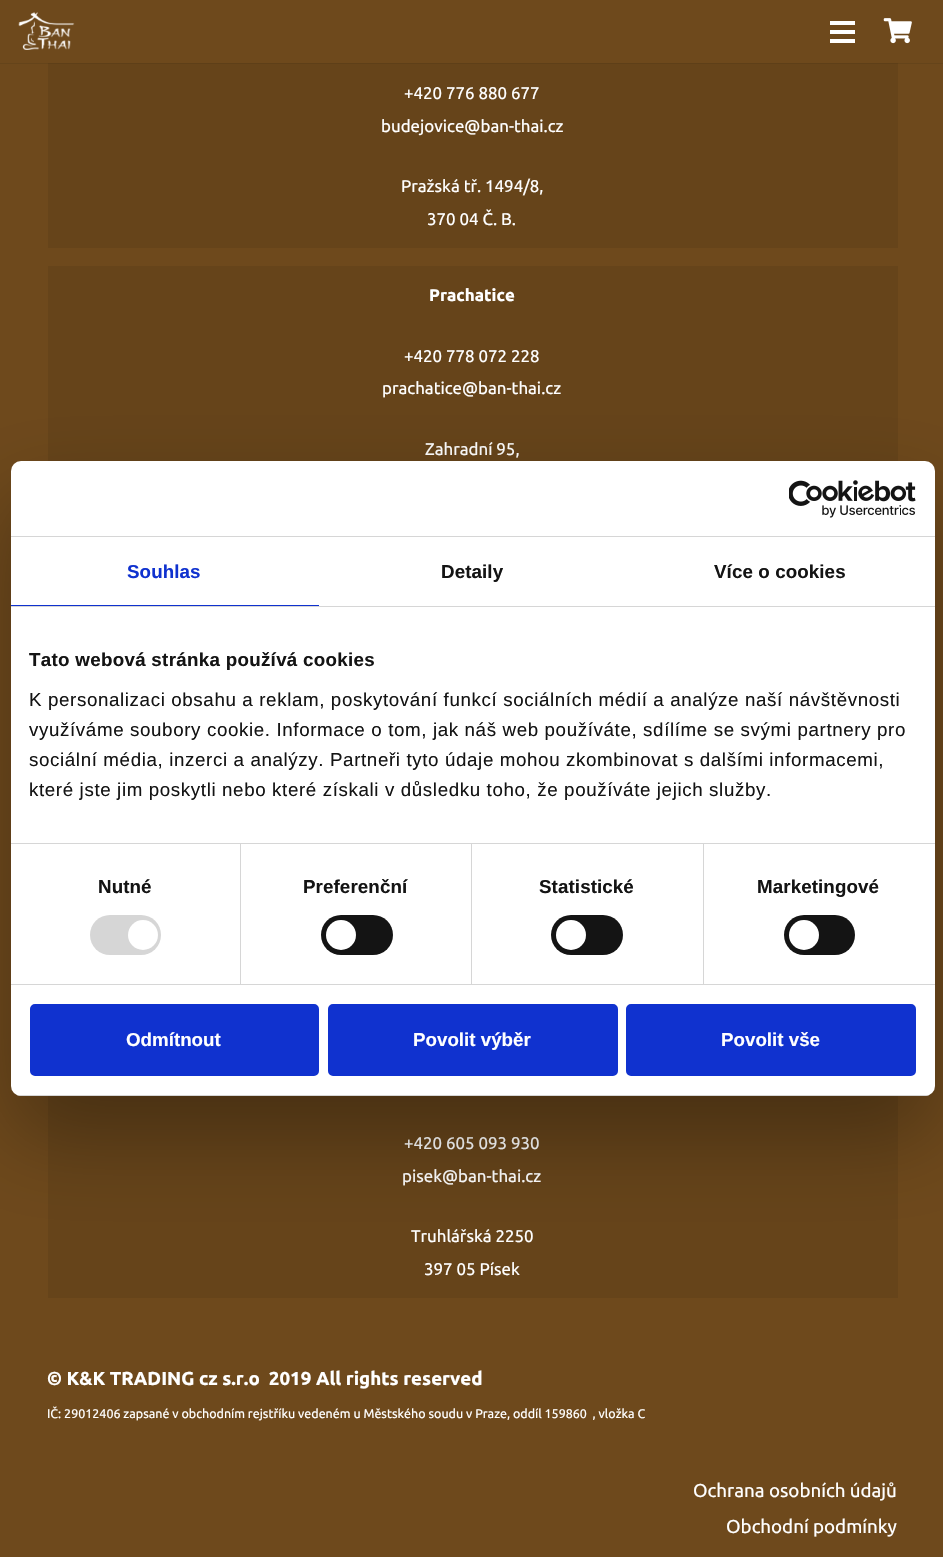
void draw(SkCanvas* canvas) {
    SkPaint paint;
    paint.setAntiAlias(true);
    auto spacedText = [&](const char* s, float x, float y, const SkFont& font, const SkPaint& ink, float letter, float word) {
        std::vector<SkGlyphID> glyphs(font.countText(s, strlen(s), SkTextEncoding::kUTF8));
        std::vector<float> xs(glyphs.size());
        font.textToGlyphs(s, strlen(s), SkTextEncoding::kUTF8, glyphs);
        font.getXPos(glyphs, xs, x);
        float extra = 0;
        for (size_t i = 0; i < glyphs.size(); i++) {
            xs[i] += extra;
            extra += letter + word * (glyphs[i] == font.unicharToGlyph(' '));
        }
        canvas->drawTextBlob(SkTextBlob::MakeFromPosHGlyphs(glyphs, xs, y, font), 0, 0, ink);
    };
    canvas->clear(0xFF6E491C);
    paint.setColor(0xFF66441A);
    canvas->drawRect(SkRect::MakeXYWH(48, 63, 850, 185), paint);
    paint.setColor(0x14000000);
    canvas->drawPath(SkPathBuilder().moveTo(0, 62).lineTo(0, 64).lineTo(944, 64).lineTo(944, 1).lineTo(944, 62).close().detach(), paint);
    paint.setColor(0xFF6E491C);
    canvas->drawRect(SkRect::MakeXYWH(0, 62, 943, 1), paint);
    canvas->drawImageRect(SkImages::DeferredFromEncodedData(SkData::MakeFromFileName("img1.png")), SkRect::MakeXYWH(18, 12, 57, 38), SkSamplingOptions());
    paint.setColor(0xFFFFFFFF);
    canvas->drawRect(SkRect::MakeXYWH(830, 30, 25, 4), paint);
    canvas->drawRect(SkRect::MakeXYWH(830, 21, 25, 4), paint);
    canvas->drawRect(SkRect::MakeXYWH(830, 39, 25, 4), paint);
    canvas->drawImageRect(SkImages::DeferredFromEncodedData(SkData::MakeFromFileName("img2.png")), SkRect::MakeXYWH(883, 18, 29, 26), SkSamplingOptions());
    SkFont font1(fontMgr->matchFamilyStyle("Ubuntu", SkFontStyle::Normal()), 16.9f);
    font1.setSubpixel(true);
    canvas->drawString("+420 776 880 677", 404, 99, font1, paint);
    canvas->drawString("budejovice@ban-thai.cz", 381, 132, font1, paint);
    canvas->drawString("Pražská tř. 1494/8,", 401, 192, font1, paint);
    canvas->drawString("370 04 Č. B.", 427, 225, font1, paint);
    paint.setColor(0xFF66441A);
    canvas->drawRect(SkRect::MakeXYWH(48, 266, 850, 195), paint);
    SkFont font2(fontMgr->matchFamilyStyle("Ubuntu", SkFontStyle::Bold()), 16.9f);
    font2.setSubpixel(true);
    paint.setColor(0xFFFFFFFF);
    canvas->drawString("Prachatice", 429, 301, font2, paint);
    canvas->drawString("+420 778 072 228", 404, 362, font1, paint);
    canvas->drawString("prachatice@ban-thai.cz", 382, 394, font1, paint);
    canvas->drawString("Zahradní 95,", 425, 455, font1, paint);
    paint.setColor(0xFF66441A);
    canvas->drawRect(SkRect::MakeXYWH(48, 1096, 850, 202), paint);
    paint.setColor(0xFFFFFFFF);
    canvas->drawString("+420 605 093 930", 404, 1149, font1, paint);
    canvas->drawString("pisek@ban-thai.cz", 402, 1182, font1, paint);
    canvas->drawString("Truhlářská 2250", 411, 1242, font1, paint);
    canvas->drawString("397 05 Písek", 424, 1275, font1, paint);
    SkFont font3(fontMgr->matchFamilyStyle("Ubuntu", SkFontStyle::Bold()), 18.75f);
    font3.setSubpixel(true);
    canvas->drawString("© K&K TRADING cz s.r.o  2019 All rights reserved", 47, 1385, font3, paint);
    SkFont font4(fontMgr->matchFamilyStyle("Ubuntu", SkFontStyle::Normal()), 12.5f);
    font4.setSubpixel(true);
    canvas->drawString("IČ: 29012406 zapsané v obchodním rejstříku vedeném u Městského soudu v Praze, oddíl 159860  , vložka C", 47, 1418, font4, paint);
    SkFont font5(fontMgr->matchFamilyStyle("Ubuntu", SkFontStyle::Normal()), 18.75f);
    font5.setSubpixel(true);
    canvas->drawString("Ochrana osobních údajů", 693, 1497, font5, paint);
    canvas->drawString("Obchodní podmínky", 726, 1533, font5, paint);
    paint.setColor(0x4D000000);
    paint.setMaskFilter(SkMaskFilter::MakeBlur(kNormal_SkBlurStyle, 42.5f));
    canvas->drawRoundRect(SkRect::MakeXYWH(11, 501, 924, 635), 10, 10, paint);
    paint.setMaskFilter(nullptr);
    paint.setColor(0xFFFFFFFF);
    canvas->drawRoundRect(SkRect::MakeXYWH(11, 461, 924, 635), 10, 10, paint);
    paint.setColor(0xFFD6D6D6);
    canvas->drawRect(SkRect::MakeXYWH(11, 536, 924, 1), paint);
    canvas->drawImageRect(SkImages::DeferredFromEncodedData(SkData::MakeFromFileName("img3.png")), SkRect::MakeXYWH(789, 480, 127, 38), SkSamplingOptions());
    canvas->drawRect(SkRect::MakeXYWH(11, 606, 924, 1), paint);
    paint.setColor(0xFF1032CF);
    canvas->drawRect(SkRect::MakeXYWH(11, 605, 308, 1), paint);
    SkFont font6(fontMgr->matchFamilyStyle("Liberation Sans", SkFontStyle::Bold()), 18.75f);
    font6.setSubpixel(true);
    spacedText("Souhlas", 127, 578, font6, paint, 0.1f, 0);
    paint.setColor(0xFF141414);
    spacedText("Detaily", 441, 578, font6, paint, 0.1f, 0);
    spacedText("Více o cookies", 714, 578, font6, paint, 0.1f, 0);
    paint.setColor(0xFFD6D6D6);
    canvas->drawRect(SkRect::MakeXYWH(11, 843, 924, 1), paint);
    paint.setColor(0xFF141414);
    spacedText("Tato webová stránka používá cookies", 29, 666, font6, paint, 0.3f, 0);
    SkFont font7(fontMgr->matchFamilyStyle("Liberation Sans", SkFontStyle::Normal()), 18.75f);
    font7.setSubpixel(true);
    spacedText("K personalizaci obsahu a reklam, poskytování funkcí sociálních médií a analýze naší návštěvnosti", 29, 706, font7, paint, 0.62f, 0);
    spacedText("využíváme soubory cookie. Informace o tom, jak náš web používáte, sdílíme se svými partnery pro", 29, 736, font7, paint, 0.62f, 0);
    spacedText("sociální média, inzerci a analýzy. Partneři tyto údaje mohou zkombinovat s dalšími informacemi,", 29, 766, font7, paint, 0.62f, 0);
    spacedText("které jste jim poskytli nebo které získali v důsledku toho, že používáte jejich služby.", 29, 796, font7, paint, 0.62f, 0);
    paint.setColor(0xFFD6D6D6);
    canvas->drawRect(SkRect::MakeXYWH(11, 984, 924, 1), paint);
    canvas->drawRect(SkRect::MakeXYWH(240, 844, 1, 140), paint);
    paint.setColor(0xFF141414);
    spacedText("Nutné", 98, 893, font6, paint, 0.1f, 0);
    paint.setColor(0xFFD6D6D6);
    canvas->drawRoundRect(SkRect::MakeXYWH(90, 915, 71, 40), 20, 20, paint);
    paint.setColor(0xFFFFFFFF);
    canvas->drawCircle(143, 935, 15, paint);
    paint.setColor(0xFFD6D6D6);
    canvas->drawRect(SkRect::MakeXYWH(471, 844, 1, 140), paint);
    paint.setColor(0xFF141414);
    spacedText("Preferenční", 303, 893, font6, paint, 0.1f, 0);
    canvas->drawRoundRect(SkRect::MakeXYWH(321, 915, 72, 40), 20, 20, paint);
    paint.setColor(0xFFFFFFFF);
    canvas->drawCircle(341, 935, 15, paint);
    paint.setColor(0xFFD6D6D6);
    canvas->drawRect(SkRect::MakeXYWH(703, 844, 1, 140), paint);
    paint.setColor(0xFF141414);
    spacedText("Statistické", 539, 893, font6, paint, 0.1f, 0);
    canvas->drawRoundRect(SkRect::MakeXYWH(551, 915, 72, 40), 20, 20, paint);
    paint.setColor(0xFFFFFFFF);
    canvas->drawCircle(571, 935, 15, paint);
    paint.setColor(0xFF141414);
    spacedText("Marketingové", 757, 893, font6, paint, 0.1f, 0);
    canvas->drawRoundRect(SkRect::MakeXYWH(784, 915, 71, 40), 20, 20, paint);
    paint.setColor(0xFFFFFFFF);
    canvas->drawCircle(804, 935, 15, paint);
    canvas->save();
    canvas->clipPath(SkPathBuilder().moveTo(21, 461).lineTo(925, 461).cubicTo(930.5f, 461, 935, 465.5f, 935, 471).lineTo(935, 1086).cubicTo(935, 1091.5f, 930.5f, 1096, 925, 1096).lineTo(21, 1096).cubicTo(15.5f, 1096, 11, 1091.5f, 11, 1086).lineTo(11, 471).cubicTo(11, 465.5f, 15.5f, 461, 21, 461).close().detach(), true);
    paint.setColor(0xFFD6D6D6);
    canvas->drawRect(SkRect::MakeXYWH(11, 1095, 924, 1), paint);
    canvas->restore();
    paint.setColor(0xFF1032CF);
    canvas->drawRoundRect(SkRect::MakeXYWH(31.5f, 1005.5f, 286, 69), 3.5f, 3.5f, paint);
    paint.setStyle(SkPaint::kStroke_Style);
    paint.setStrokeWidth(3);
    canvas->drawRoundRect(SkRect::MakeXYWH(31.5f, 1005.5f, 286, 69), 3.5f, 3.5f, paint);
    paint.setStyle(SkPaint::kFill_Style);
    paint.setColor(0xFFFFFFFF);
    canvas->drawString("Odmítnout", 126, 1046, font6, paint);
    paint.setColor(0xFF1032CF);
    canvas->drawRoundRect(SkRect::MakeXYWH(329.5f, 1005.5f, 287, 69), 3.5f, 3.5f, paint);
    paint.setStyle(SkPaint::kStroke_Style);
    canvas->drawRoundRect(SkRect::MakeXYWH(329.5f, 1005.5f, 287, 69), 3.5f, 3.5f, paint);
    paint.setStyle(SkPaint::kFill_Style);
    paint.setColor(0xFFFFFFFF);
    canvas->drawString("Povolit výběr", 413, 1046, font6, paint);
    paint.setColor(0xFF1032CF);
    canvas->drawRoundRect(SkRect::MakeXYWH(627.5f, 1005.5f, 287, 69), 3.5f, 3.5f, paint);
    paint.setStyle(SkPaint::kStroke_Style);
    canvas->drawRoundRect(SkRect::MakeXYWH(627.5f, 1005.5f, 287, 69), 3.5f, 3.5f, paint);
    paint.setStyle(SkPaint::kFill_Style);
    paint.setColor(0xFFFFFFFF);
    canvas->drawString("Povolit vše", 721, 1046, font6, paint);
}
